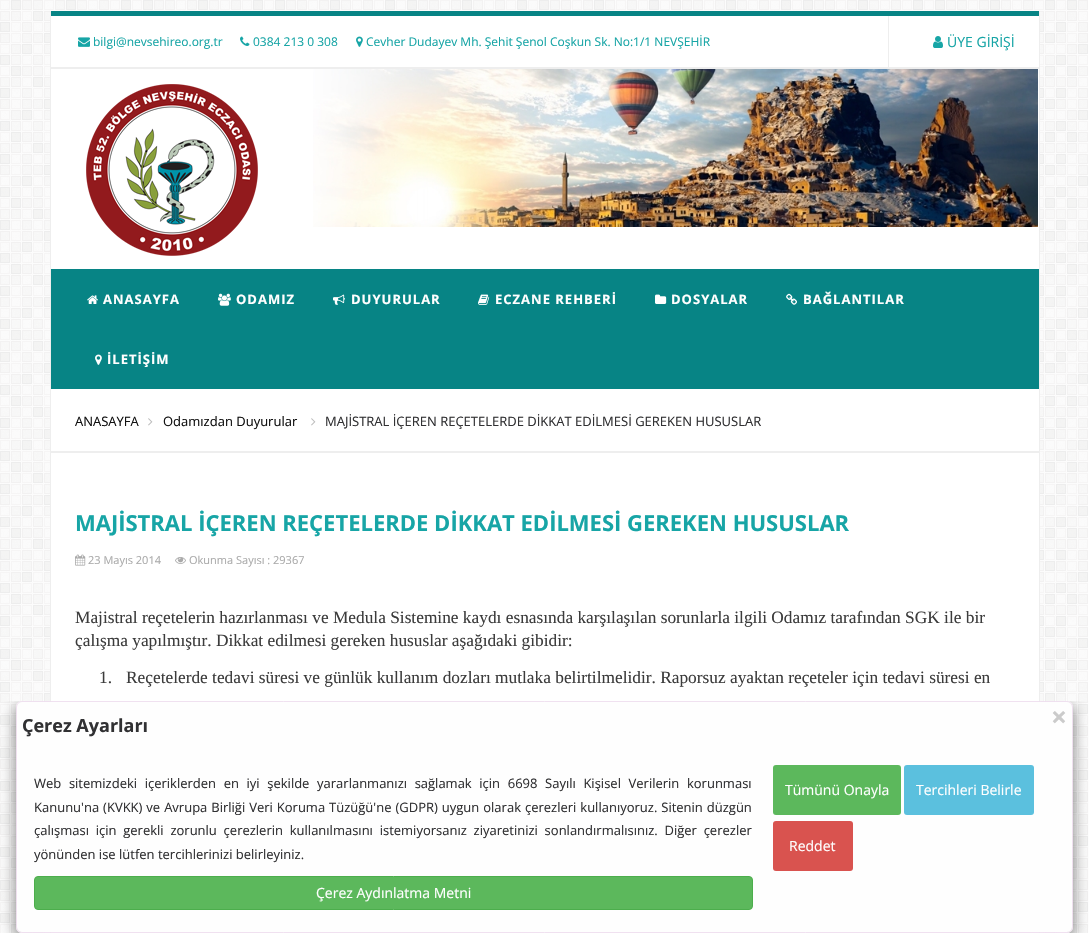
void draw(SkCanvas* canvas) {
    SkPaint paint;
    paint.setAntiAlias(true);
    auto spacedText = [&](const char* s, float x, float y, const SkFont& font, const SkPaint& ink, float letter, float word) {
        std::vector<SkGlyphID> glyphs(font.countText(s, strlen(s), SkTextEncoding::kUTF8));
        std::vector<float> xs(glyphs.size());
        font.textToGlyphs(s, strlen(s), SkTextEncoding::kUTF8, glyphs);
        font.getXPos(glyphs, xs, x);
        float extra = 0;
        for (size_t i = 0; i < glyphs.size(); i++) {
            xs[i] += extra;
            extra += letter + word * (glyphs[i] == font.unicharToGlyph(' '));
        }
        canvas->drawTextBlob(SkTextBlob::MakeFromPosHGlyphs(glyphs, xs, y, font), 0, 0, ink);
    };
    canvas->clear(0xFFFFFFFF);
    canvas->drawImageRect(SkImages::DeferredFromEncodedData(SkData::MakeFromFileName("img1.png")), SkRect::MakeXYWH(0, 0, 1088, 933), SkSamplingOptions());
    paint.setColor(0xFFFFFFFF);
    canvas->drawRect(SkRect::MakeXYWH(51, 16, 988, 917), paint);
    paint.setColor(0xFFEEEEEE);
    canvas->drawRect(SkRect::MakeXYWH(1039, 11, 1, 922), paint);
    canvas->drawRect(SkRect::MakeXYWH(50, 11, 1, 922), paint);
    paint.setColor(0xFF078485);
    canvas->drawRect(SkRect::MakeXYWH(51, 11, 988, 5), paint);
    paint.setColor(0xFFEEEEEE);
    canvas->drawRect(SkRect::MakeXYWH(51, 67, 988, 2), paint);
    canvas->drawImageRect(SkImages::DeferredFromEncodedData(SkData::MakeFromFileName("img2.png")), SkRect::MakeXYWH(78, 37, 12, 10), SkSamplingOptions());
    SkFont font1(fontMgr->matchFamilyStyle("Open Sans", SkFontStyle::Normal()), 12);
    font1.setSubpixel(true);
    paint.setColor(0xFF17A5A6);
    canvas->drawString("bilgi@nevsehireo.org.tr", 93, 46, font1, paint);
    canvas->drawImageRect(SkImages::DeferredFromEncodedData(SkData::MakeFromFileName("img3.png")), SkRect::MakeXYWH(240, 36, 10, 10), SkSamplingOptions());
    canvas->drawString("0384 213 0 308", 253, 46, font1, paint);
    canvas->drawImageRect(SkImages::DeferredFromEncodedData(SkData::MakeFromFileName("img4.png")), SkRect::MakeXYWH(356, 36, 7, 11), SkSamplingOptions());
    canvas->drawString("Cevher Dudayev Mh. Şehit Şenol Coşkun Sk. No:1/1 NEVŞEHİR", 366, 46, font1, paint);
    paint.setColor(0xFFEEEEEE);
    canvas->drawRect(SkRect::MakeXYWH(888, 16, 1, 51), paint);
    canvas->drawImageRect(SkImages::DeferredFromEncodedData(SkData::MakeFromFileName("img5.png")), SkRect::MakeXYWH(933, 36, 10, 12), SkSamplingOptions());
    SkFont font2(fontMgr->matchFamilyStyle("Open Sans", SkFontStyle::Normal()), 14);
    font2.setSubpixel(true);
    paint.setColor(0xFF17A5A6);
    canvas->drawString("ÜYE GİRİŞİ", 947, 47, font2, paint);
    canvas->drawImageRect(SkImages::DeferredFromEncodedData(SkData::MakeFromFileName("img6.png")), SkRect::MakeXYWH(86, 84, 172, 172), SkSamplingOptions());
    canvas->drawImageRect(SkImages::DeferredFromEncodedData(SkData::MakeFromFileName("img7.png")), SkRect::MakeXYWH(313, 69, 725, 158), SkSamplingOptions());
    paint.setColor(0xFF078485);
    canvas->drawRect(SkRect::MakeXYWH(51, 269, 988, 120), paint);
    canvas->drawImageRect(SkImages::DeferredFromEncodedData(SkData::MakeFromFileName("img8.png")), SkRect::MakeXYWH(87, 295, 11, 9), SkSamplingOptions());
    SkFont font3(fontMgr->matchFamilyStyle("Open Sans", SkFontStyle::Bold()), 13);
    font3.setSubpixel(true);
    paint.setColor(0xFFFFFFFF);
    spacedText("ANASAYFA", 103, 304, font3, paint, 1, 0);
    canvas->drawImageRect(SkImages::DeferredFromEncodedData(SkData::MakeFromFileName("img9.png")), SkRect::MakeXYWH(218, 293, 13, 13), SkSamplingOptions());
    spacedText("ODAMIZ", 236, 304, font3, paint, 1, 0);
    canvas->drawImageRect(SkImages::DeferredFromEncodedData(SkData::MakeFromFileName("img10.png")), SkRect::MakeXYWH(333, 294, 12, 11), SkSamplingOptions());
    spacedText("DUYURULAR", 351, 304, font3, paint, 1, 0);
    canvas->drawImageRect(SkImages::DeferredFromEncodedData(SkData::MakeFromFileName("img11.png")), SkRect::MakeXYWH(478, 294, 12, 11), SkSamplingOptions());
    spacedText("ECZANE REHBERİ", 495, 304, font3, paint, 1, 0);
    canvas->drawImageRect(SkImages::DeferredFromEncodedData(SkData::MakeFromFileName("img12.png")), SkRect::MakeXYWH(655, 294, 12, 10), SkSamplingOptions());
    spacedText("DOSYALAR", 671, 304, font3, paint, 1, 0);
    canvas->drawImageRect(SkImages::DeferredFromEncodedData(SkData::MakeFromFileName("img13.png")), SkRect::MakeXYWH(786, 293, 11, 12), SkSamplingOptions());
    spacedText("BAĞLANTILAR", 803, 304, font3, paint, 1, 0);
    canvas->drawImageRect(SkImages::DeferredFromEncodedData(SkData::MakeFromFileName("img14.png")), SkRect::MakeXYWH(95, 354, 7, 11), SkSamplingOptions());
    spacedText("İLETİŞİM", 107, 364, font3, paint, 1, 0);
    paint.setColor(0xFFEEEEEE);
    canvas->drawRect(SkRect::MakeXYWH(51, 451, 988, 2), paint);
    SkFont font4(fontMgr->matchFamilyStyle("Open Sans", SkFontStyle::Normal()), 13);
    font4.setSubpixel(true);
    paint.setColor(0xFF111111);
    canvas->drawString("ANASAYFA", 75, 426, font4, paint);
    canvas->drawImageRect(SkImages::DeferredFromEncodedData(SkData::MakeFromFileName("img15.png")), SkRect::MakeXYWH(148, 418, 5, 8), SkSamplingOptions());
    canvas->drawString("Odamızdan Duyurular", 163, 426, font4, paint);
    canvas->drawImageRect(SkImages::DeferredFromEncodedData(SkData::MakeFromFileName("img15.png")), SkRect::MakeXYWH(311, 418, 5, 8), SkSamplingOptions());
    paint.setColor(0xFF313133);
    canvas->drawString("MAJİSTRAL İÇEREN REÇETELERDE DİKKAT EDİLMESİ GEREKEN HUSUSLAR", 325, 426, font4, paint);
    SkFont font5(fontMgr->matchFamilyStyle("Open Sans", SkFontStyle::Bold()), 22);
    font5.setSubpixel(true);
    paint.setColor(0xFF17A5A6);
    canvas->drawString("MAJİSTRAL İÇEREN REÇETELERDE DİKKAT EDİLMESİ GEREKEN HUSUSLAR", 75, 531, font5, paint);
    canvas->drawImageRect(SkImages::DeferredFromEncodedData(SkData::MakeFromFileName("img16.png")), SkRect::MakeXYWH(75, 554, 11, 12), SkSamplingOptions());
    SkFont font6(fontMgr->matchFamilyStyle("Open Sans", SkFontStyle::Normal()), 11);
    font6.setSubpixel(true);
    paint.setColor(0xFFAAAAAA);
    canvas->drawString("23 Mayıs 2014", 88, 564, font6, paint);
    canvas->drawImageRect(SkImages::DeferredFromEncodedData(SkData::MakeFromFileName("img17.png")), SkRect::MakeXYWH(175, 557, 11, 7), SkSamplingOptions());
    canvas->drawString("Okunma Sayısı : 29367", 189, 564, font6, paint);
    SkFont font7(fontMgr->matchFamilyStyle("Liberation Serif", SkFontStyle::Normal()), 17.33f);
    font7.setSubpixel(true);
    paint.setColor(0xFF3C3C3C);
    canvas->drawString("Majistral reçetelerin hazırlanması ve Medula Sistemine kaydı esnasında karşılaşılan sorunlarla ilgili Odamız tarafından SGK ile bir", 75, 623, font7, paint);
    canvas->drawString("çalışma yapılmıştır. Dikkat edilmesi gereken hususlar aşağıdaki gibidir:", 75, 646, font7, paint);
    canvas->drawString("1.", 99, 683, font7, paint);
    canvas->drawString("Reçetelerde tedavi süresi ve günlük kullanım dozları mutlaka belirtilmelidir. Raporsuz ayaktan reçeteler için tedavi süresi en", 126, 683, font7, paint);
    canvas->save();
    canvas->clipRect(SkRect::MakeXYWH(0, 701, 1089, 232));
    canvas->clipPath(SkPathBuilder(SkPathFillType::kEvenOdd).moveTo(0, 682).lineTo(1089, 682).lineTo(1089, 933).lineTo(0, 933).close().moveTo(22, 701).lineTo(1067, 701).cubicTo(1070.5f, 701, 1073, 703.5f, 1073, 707).lineTo(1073, 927).cubicTo(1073, 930.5f, 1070.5f, 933, 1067, 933).lineTo(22, 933).cubicTo(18.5f, 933, 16, 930.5f, 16, 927).lineTo(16, 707).cubicTo(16, 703.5f, 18.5f, 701, 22, 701).close().detach(), true);
    paint.setColor(0x80000000);
    paint.setMaskFilter(SkMaskFilter::MakeBlur(kNormal_SkBlurStyle, 7.5f));
    canvas->drawRoundRect(SkRect::MakeXYWH(16, 706, 1057, 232), 6, 6, paint);
    paint.setMaskFilter(nullptr);
    canvas->restore();
    paint.setColor(0xFFFEFEFE);
    canvas->drawRoundRect(SkRect::MakeXYWH(17, 702, 1055, 230), 5, 5, paint);
    paint.setStyle(SkPaint::kStroke_Style);
    paint.setStrokeWidth(1);
    paint.setColor(0xDEEEDDEE);
    canvas->drawRoundRect(SkRect::MakeXYWH(16.5f, 701.5f, 1056, 231), 5.5f, 5.5f, paint);
    SkFont font8(fontMgr->matchFamilyStyle("Open Sans", SkFontStyle::Bold()), 18);
    font8.setSubpixel(true);
    paint.setStyle(SkPaint::kFill_Style);
    paint.setColor(0xFF313133);
    canvas->drawString("Çerez Ayarları", 22, 732, font8, paint);
    SkFont font9(fontMgr->matchFamilyStyle("Open Sans", SkFontStyle::Bold()), 28);
    font9.setSubpixel(true);
    paint.setColor(0xFFCBCBCB);
    canvas->drawString("×", 1051, 727, font9, paint);
    paint.setColor(0xFF313133);
    spacedText("Web sitemizdeki içeriklerden en iyi şekilde yararlanmanızı sağlamak için 6698 Sayılı Kişisel Verilerin korunması", 34, 788, font4, paint, 0, 4.25f);
    spacedText("Kanunu'na (KVKK) ve Avrupa Birliği Veri Koruma Tüzüğü'ne (GDPR) uygun olarak çerezleri kullanıyoruz. Sitenin düzgün", 34, 812, font4, paint, 0, 0.6f);
    spacedText("çalışması için gerekli zorunlu çerezlerin kullanılmasını istemiyorsanız ziyaretinizi sonlandırmalısınız. Diğer çerezler", 34, 835, font4, paint, 0, 3.4f);
    canvas->drawString("yönünden ise lütfen tercihlerinizi belirleyiniz.", 34, 859, font4, paint);
    paint.setColor(0xFF5CB85C);
    canvas->drawRoundRect(SkRect::MakeXYWH(34.5f, 876.5f, 718, 33), 3.5f, 3.5f, paint);
    paint.setStyle(SkPaint::kStroke_Style);
    paint.setColor(0xFF4CAE4C);
    canvas->drawRoundRect(SkRect::MakeXYWH(34.5f, 876.5f, 718, 33), 3.5f, 3.5f, paint);
    paint.setStyle(SkPaint::kFill_Style);
    paint.setColor(0xFFFFFFFF);
    canvas->drawString("Çerez Aydınlatma Metni", 316, 898, font2, paint);
    paint.setColor(0xFF5CB85C);
    canvas->drawRoundRect(SkRect::MakeXYWH(773, 765, 128, 50), 3, 3, paint);
    paint.setColor(0xFFFFFFFF);
    canvas->drawString("Tümünü Onayla", 785, 795, font2, paint);
    paint.setColor(0xFF5BC0DE);
    canvas->drawRoundRect(SkRect::MakeXYWH(904, 765, 130, 50), 3, 3, paint);
    paint.setColor(0xFFFFFFFF);
    canvas->drawString("Tercihleri Belirle", 916, 795, font2, paint);
    paint.setColor(0xFFD9534F);
    canvas->drawRoundRect(SkRect::MakeXYWH(773, 821, 80, 50), 3, 3, paint);
    paint.setColor(0xFFFFFFFF);
    canvas->drawString("Reddet", 789, 851, font2, paint);
}
